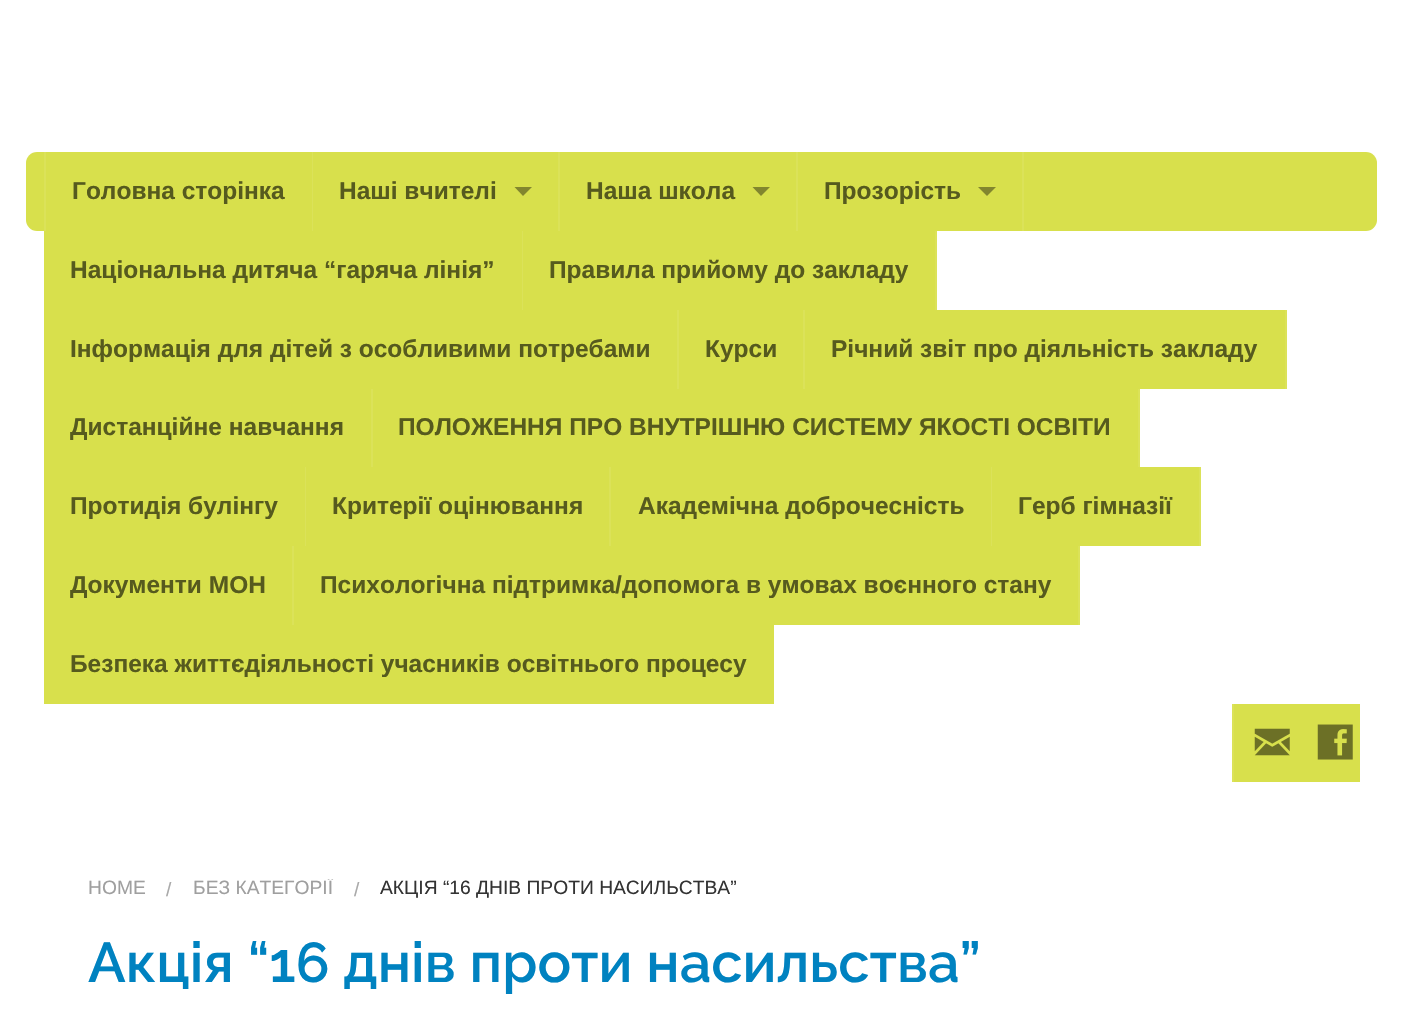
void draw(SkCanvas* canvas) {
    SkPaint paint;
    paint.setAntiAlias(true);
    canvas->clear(0xFFFFFFFF);
    paint.setColor(0xFFD8E04C);
    canvas->drawRoundRect(SkRect::MakeXYWH(26, 152, 1351, 79), 11, 11, paint);
    paint.setColor(0xFFDBE259);
    canvas->drawRect(SkRect::MakeXYWH(44, 152, 2, 79), paint);
    SkFont font1(fontMgr->matchFamilyStyle("Liberation Sans", SkFontStyle::Bold()), 24.5f);
    font1.setSubpixel(true);
    paint.setColor(0xFF565A1E);
    canvas->drawString("Головна сторінка", 72, 199, font1, paint);
    paint.setColor(0xFFDBE259);
    canvas->drawRect(SkRect::MakeXYWH(312, 152, 1, 79), paint);
    paint.setColor(0xFF565A1E);
    canvas->drawString("Наші вчителі", 339, 199, font1, paint);
    paint.setColor(0xFF82862E);
    canvas->drawPath(SkPathBuilder().moveTo(514.5f, 187).lineTo(532, 187).lineTo(523, 196).close().detach(), paint);
    paint.setColor(0xFFDBE259);
    canvas->drawRect(SkRect::MakeXYWH(558, 152, 2, 79), paint);
    paint.setColor(0xFF565A1E);
    canvas->drawString("Наша школа", 586, 199, font1, paint);
    paint.setColor(0xFF82862E);
    canvas->drawPath(SkPathBuilder().moveTo(752.5f, 187).lineTo(770, 187).lineTo(761, 196).close().detach(), paint);
    paint.setColor(0xFFDBE259);
    canvas->drawRect(SkRect::MakeXYWH(796, 152, 2, 79), paint);
    paint.setColor(0xFF565A1E);
    canvas->drawString("Прозорість", 824, 199, font1, paint);
    paint.setColor(0xFF82862E);
    canvas->drawPath(SkPathBuilder().moveTo(978, 187).lineTo(996, 187).lineTo(987, 196).close().detach(), paint);
    paint.setColor(0xFFDBE259);
    canvas->drawRect(SkRect::MakeXYWH(1022, 152, 2, 79), paint);
    paint.setColor(0xFFD8E04C);
    canvas->drawRect(SkRect::MakeXYWH(44, 231, 478, 79), paint);
    paint.setColor(0xFF565A1E);
    canvas->drawString("Національна дитяча “гаряча лінія”", 70, 278, font1, paint);
    paint.setColor(0xFFDBE259);
    canvas->drawRect(SkRect::MakeXYWH(522, 231, 1, 79), paint);
    paint.setColor(0xFFD8E04C);
    canvas->drawRect(SkRect::MakeXYWH(523, 231, 412, 79), paint);
    paint.setColor(0xFF565A1E);
    canvas->drawString("Правила прийому до закладу", 549, 278, font1, paint);
    paint.setColor(0xFFDBE259);
    canvas->drawRect(SkRect::MakeXYWH(935, 231, 2, 79), paint);
    paint.setColor(0xFFD8E04C);
    canvas->drawRect(SkRect::MakeXYWH(44, 310, 633, 79), paint);
    paint.setColor(0xFF565A1E);
    canvas->drawString("Інформація для дітей з особливими потребами", 70, 357, font1, paint);
    paint.setColor(0xFFDBE259);
    canvas->drawRect(SkRect::MakeXYWH(677, 310, 2, 79), paint);
    paint.setColor(0xFFD8E04C);
    canvas->drawRect(SkRect::MakeXYWH(679, 310, 124, 79), paint);
    paint.setColor(0xFF565A1E);
    canvas->drawString("Курси", 705, 357, font1, paint);
    paint.setColor(0xFFDBE259);
    canvas->drawRect(SkRect::MakeXYWH(803, 310, 2, 79), paint);
    paint.setColor(0xFFD8E04C);
    canvas->drawRect(SkRect::MakeXYWH(805, 310, 480, 79), paint);
    paint.setColor(0xFF565A1E);
    canvas->drawString("Річний звіт про діяльність закладу", 831, 357, font1, paint);
    paint.setColor(0xFFDBE259);
    canvas->drawRect(SkRect::MakeXYWH(1285, 310, 2, 79), paint);
    paint.setColor(0xFFD8E04C);
    canvas->drawRect(SkRect::MakeXYWH(44, 389, 327, 78), paint);
    paint.setColor(0xFF565A1E);
    canvas->drawString("Дистанційне навчання", 70, 435, font1, paint);
    paint.setColor(0xFFDBE259);
    canvas->drawRect(SkRect::MakeXYWH(371, 389, 2, 78), paint);
    paint.setColor(0xFFD8E04C);
    canvas->drawRect(SkRect::MakeXYWH(373, 389, 765, 78), paint);
    paint.setColor(0xFF565A1E);
    canvas->drawString("ПОЛОЖЕННЯ ПРО ВНУТРІШНЮ СИСТЕМУ ЯКОСТІ ОСВІТИ", 398, 435, font1, paint);
    paint.setColor(0xFFDBE259);
    canvas->drawRect(SkRect::MakeXYWH(1138, 389, 2, 78), paint);
    paint.setColor(0xFFD8E04C);
    canvas->drawRect(SkRect::MakeXYWH(44, 467, 261, 79), paint);
    paint.setColor(0xFF565A1E);
    canvas->drawString("Протидія булінгу", 70, 514, font1, paint);
    paint.setColor(0xFFDBE259);
    canvas->drawRect(SkRect::MakeXYWH(305, 467, 1, 79), paint);
    paint.setColor(0xFFD8E04C);
    canvas->drawRect(SkRect::MakeXYWH(306, 467, 303, 79), paint);
    paint.setColor(0xFF565A1E);
    canvas->drawString("Критерії оцінювання", 332, 514, font1, paint);
    paint.setColor(0xFFDBE259);
    canvas->drawRect(SkRect::MakeXYWH(609, 467, 2, 79), paint);
    paint.setColor(0xFFD8E04C);
    canvas->drawRect(SkRect::MakeXYWH(611, 467, 380, 79), paint);
    paint.setColor(0xFF565A1E);
    canvas->drawString("Академічна доброчесність", 638, 514, font1, paint);
    paint.setColor(0xFFDBE259);
    canvas->drawRect(SkRect::MakeXYWH(991, 467, 1, 79), paint);
    paint.setColor(0xFFD8E04C);
    canvas->drawRect(SkRect::MakeXYWH(992, 467, 207, 79), paint);
    paint.setColor(0xFF565A1E);
    canvas->drawString("Герб гімназії", 1018, 514, font1, paint);
    paint.setColor(0xFFDBE259);
    canvas->drawRect(SkRect::MakeXYWH(1199, 467, 2, 79), paint);
    paint.setColor(0xFFD8E04C);
    canvas->drawRect(SkRect::MakeXYWH(44, 546, 248, 79), paint);
    paint.setColor(0xFF565A1E);
    canvas->drawString("Документи МОН", 70, 593, font1, paint);
    paint.setColor(0xFFDBE259);
    canvas->drawRect(SkRect::MakeXYWH(292, 546, 2, 79), paint);
    paint.setColor(0xFFD8E04C);
    canvas->drawRect(SkRect::MakeXYWH(294, 546, 784, 79), paint);
    paint.setColor(0xFF565A1E);
    canvas->drawString("Психологічна підтримка/допомога в умовах воєнного стану", 320, 593, font1, paint);
    paint.setColor(0xFFDBE259);
    canvas->drawRect(SkRect::MakeXYWH(1078, 546, 2, 79), paint);
    paint.setColor(0xFFD8E04C);
    canvas->drawRect(SkRect::MakeXYWH(44, 625, 730, 79), paint);
    paint.setColor(0xFF565A1E);
    canvas->drawString("Безпека життєдіяльності учасників освітнього процесу", 70, 672, font1, paint);
    paint.setColor(0xFFDBE259);
    canvas->drawRect(SkRect::MakeXYWH(1232, 704, 2, 78), paint);
    paint.setColor(0xFFD8E04C);
    canvas->drawRect(SkRect::MakeXYWH(1234, 704, 126, 78), paint);
    canvas->drawImageRect(SkImages::DeferredFromEncodedData(SkData::MakeFromFileName("img1.png")), SkRect::MakeXYWH(1254, 728, 36, 28), SkSamplingOptions());
    canvas->drawImageRect(SkImages::DeferredFromEncodedData(SkData::MakeFromFileName("img2.png")), SkRect::MakeXYWH(1317, 724, 36, 36), SkSamplingOptions());
    SkFont font2(fontMgr->matchFamilyStyle("Liberation Sans", SkFontStyle::Normal()), 19.25f);
    font2.setSubpixel(true);
    paint.setColor(0xFF9F9F9F);
    canvas->drawString("HOME", 88, 894, font2, paint);
    paint.setColor(0xFFAAAAAA);
    canvas->drawString("/", 166, 896, font2, paint);
    canvas->save();
    canvas->clipPath(SkPathBuilder().moveTo(92, 879).lineTo(1312, 879).cubicTo(1314, 879, 1316, 881, 1316, 883).lineTo(1316, 894).cubicTo(1316, 896, 1314, 898, 1312, 898).lineTo(92, 898).cubicTo(90, 898, 88, 896, 88, 894).lineTo(88, 883).cubicTo(88, 881, 90, 879, 92, 879).close().detach(), true);
    paint.setColor(0xFF9F9F9F);
    canvas->drawString("БЕЗ КАТЕГОРІЇ", 193, 894, font2, paint);
    canvas->restore();
    paint.setColor(0xFFAAAAAA);
    canvas->drawString("/", 354, 896, font2, paint);
    paint.setColor(0xFF333333);
    canvas->drawString("АКЦІЯ “16 ДНІВ ПРОТИ НАСИЛЬСТВА”", 380, 894, font2, paint);
    SkFont font3(fontMgr->matchFamilyStyle("Raleway", SkFontStyle(600, SkFontStyle::kNormal_Width, SkFontStyle::kUpright_Slant)), 56);
    font3.setSubpixel(true);
    paint.setColor(0xFF0082C0);
    canvas->drawString("Акція “16 днів проти насильства”", 88, 982, font3, paint);
}
